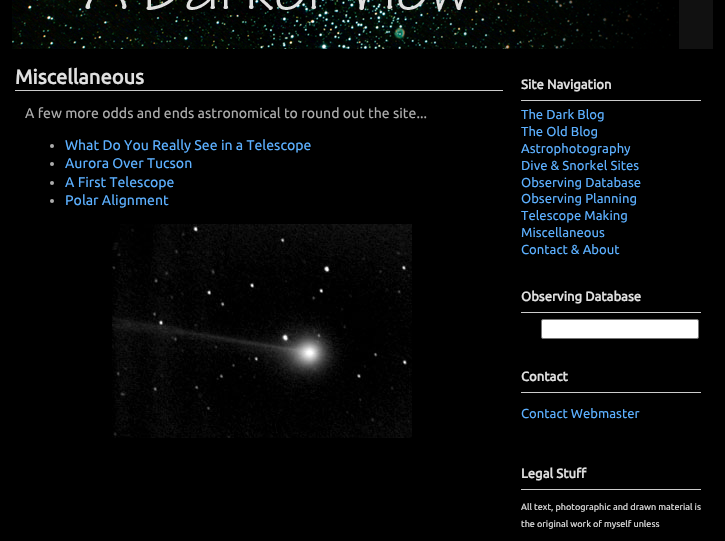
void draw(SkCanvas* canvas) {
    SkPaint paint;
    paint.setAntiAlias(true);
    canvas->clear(0xFF000000);
    paint.setColor(0xFF111111);
    canvas->drawRect(SkRect::MakeXYWH(679, 0, 34, 49), paint);
    canvas->drawImageRect(SkImages::DeferredFromEncodedData(SkData::MakeFromFileName("img1.png")), SkRect::MakeXYWH(12, 0, 667, 49), SkSamplingOptions());
    paint.setColor(0xFFCCCCCC);
    canvas->drawRect(SkRect::MakeXYWH(15, 90, 488, 1), paint);
    SkFont font1(fontMgr->matchFamilyStyle("Ubuntu", SkFontStyle::Bold()), 20);
    font1.setSubpixel(true);
    paint.setColor(0xFFE0E0E0);
    canvas->drawString("Miscellaneous", 15, 84, font1, paint);
    SkFont font2(fontMgr->matchFamilyStyle("Ubuntu", SkFontStyle::Normal()), 14);
    font2.setSubpixel(true);
    paint.setColor(0xFFACACAC);
    canvas->drawString("A few more odds and ends astronomical to round out the site...", 25, 118, font2, paint);
    canvas->drawCircle(52, 146, 2, paint);
    paint.setColor(0xFF5CB0FF);
    canvas->drawString("What Do You Really See in a Telescope", 65, 150, font2, paint);
    paint.setColor(0xFFACACAC);
    canvas->drawCircle(52, 164, 2, paint);
    paint.setColor(0xFF5CB0FF);
    canvas->drawString("Aurora Over Tucson", 65, 168, font2, paint);
    paint.setColor(0xFFACACAC);
    canvas->drawCircle(52, 183, 2, paint);
    paint.setColor(0xFF5CB0FF);
    canvas->drawString("A First Telescope", 65, 187, font2, paint);
    paint.setColor(0xFFACACAC);
    canvas->drawCircle(52, 201, 2, paint);
    paint.setColor(0xFF5CB0FF);
    canvas->drawString("Polar Alignment", 65, 205, font2, paint);
    canvas->drawImageRect(SkImages::DeferredFromEncodedData(SkData::MakeFromFileName("img2.png")), SkRect::MakeXYWH(112, 224, 300, 214), SkSamplingOptions());
    paint.setColor(0xFFCCCCCC);
    canvas->drawRect(SkRect::MakeXYWH(521, 100, 180, 1), paint);
    SkFont font3(fontMgr->matchFamilyStyle("Ubuntu", SkFontStyle::Bold()), 13);
    font3.setSubpixel(true);
    paint.setColor(0xFFE0E0E0);
    canvas->drawString("Site Navigation", 521, 89, font3, paint);
    SkFont font4(fontMgr->matchFamilyStyle("Ubuntu", SkFontStyle::Normal()), 13);
    font4.setSubpixel(true);
    paint.setColor(0xFF5CB0FF);
    canvas->drawString("The Dark Blog", 521, 119, font4, paint);
    canvas->drawString("The Old Blog", 521, 136, font4, paint);
    canvas->drawString("Astrophotography", 521, 153, font4, paint);
    canvas->drawString("Dive & Snorkel Sites", 521, 170, font4, paint);
    canvas->drawString("Observing Database", 521, 187, font4, paint);
    canvas->drawString("Observing Planning", 521, 203, font4, paint);
    canvas->drawString("Telescope Making", 521, 220, font4, paint);
    canvas->drawString("Miscellaneous", 521, 237, font4, paint);
    canvas->drawString("Contact & About", 521, 254, font4, paint);
    paint.setColor(0xFFCCCCCC);
    canvas->drawRect(SkRect::MakeXYWH(521, 312, 180, 1), paint);
    paint.setColor(0xFFE0E0E0);
    canvas->drawString("Observing Database", 521, 301, font3, paint);
    paint.setColor(0xFFFFFFFF);
    canvas->drawRoundRect(SkRect::MakeXYWH(541.5f, 319.5f, 157, 19), 1.5f, 1.5f, paint);
    paint.setStyle(SkPaint::kStroke_Style);
    paint.setStrokeWidth(1);
    paint.setColor(0xFF767676);
    canvas->drawRoundRect(SkRect::MakeXYWH(541.5f, 319.5f, 157, 19), 1.5f, 1.5f, paint);
    paint.setStyle(SkPaint::kFill_Style);
    paint.setColor(0xFFCCCCCC);
    canvas->drawRect(SkRect::MakeXYWH(521, 392, 180, 1), paint);
    paint.setColor(0xFFE0E0E0);
    canvas->drawString("Contact", 521, 381, font3, paint);
    paint.setColor(0xFF5CB0FF);
    canvas->drawString("Contact Webmaster", 521, 418, font4, paint);
    paint.setColor(0xFFCCCCCC);
    canvas->drawRect(SkRect::MakeXYWH(521, 489, 180, 1), paint);
    paint.setColor(0xFFE0E0E0);
    canvas->drawString("Legal Stuff", 521, 478, font3, paint);
    SkFont font5(fontMgr->matchFamilyStyle("Ubuntu", SkFontStyle::Normal()), 9);
    font5.setSubpixel(true);
    canvas->drawString("All text, photographic and drawn material is", 521, 510, font5, paint);
    canvas->drawString("the original work of myself unless", 521, 527, font5, paint);
}
